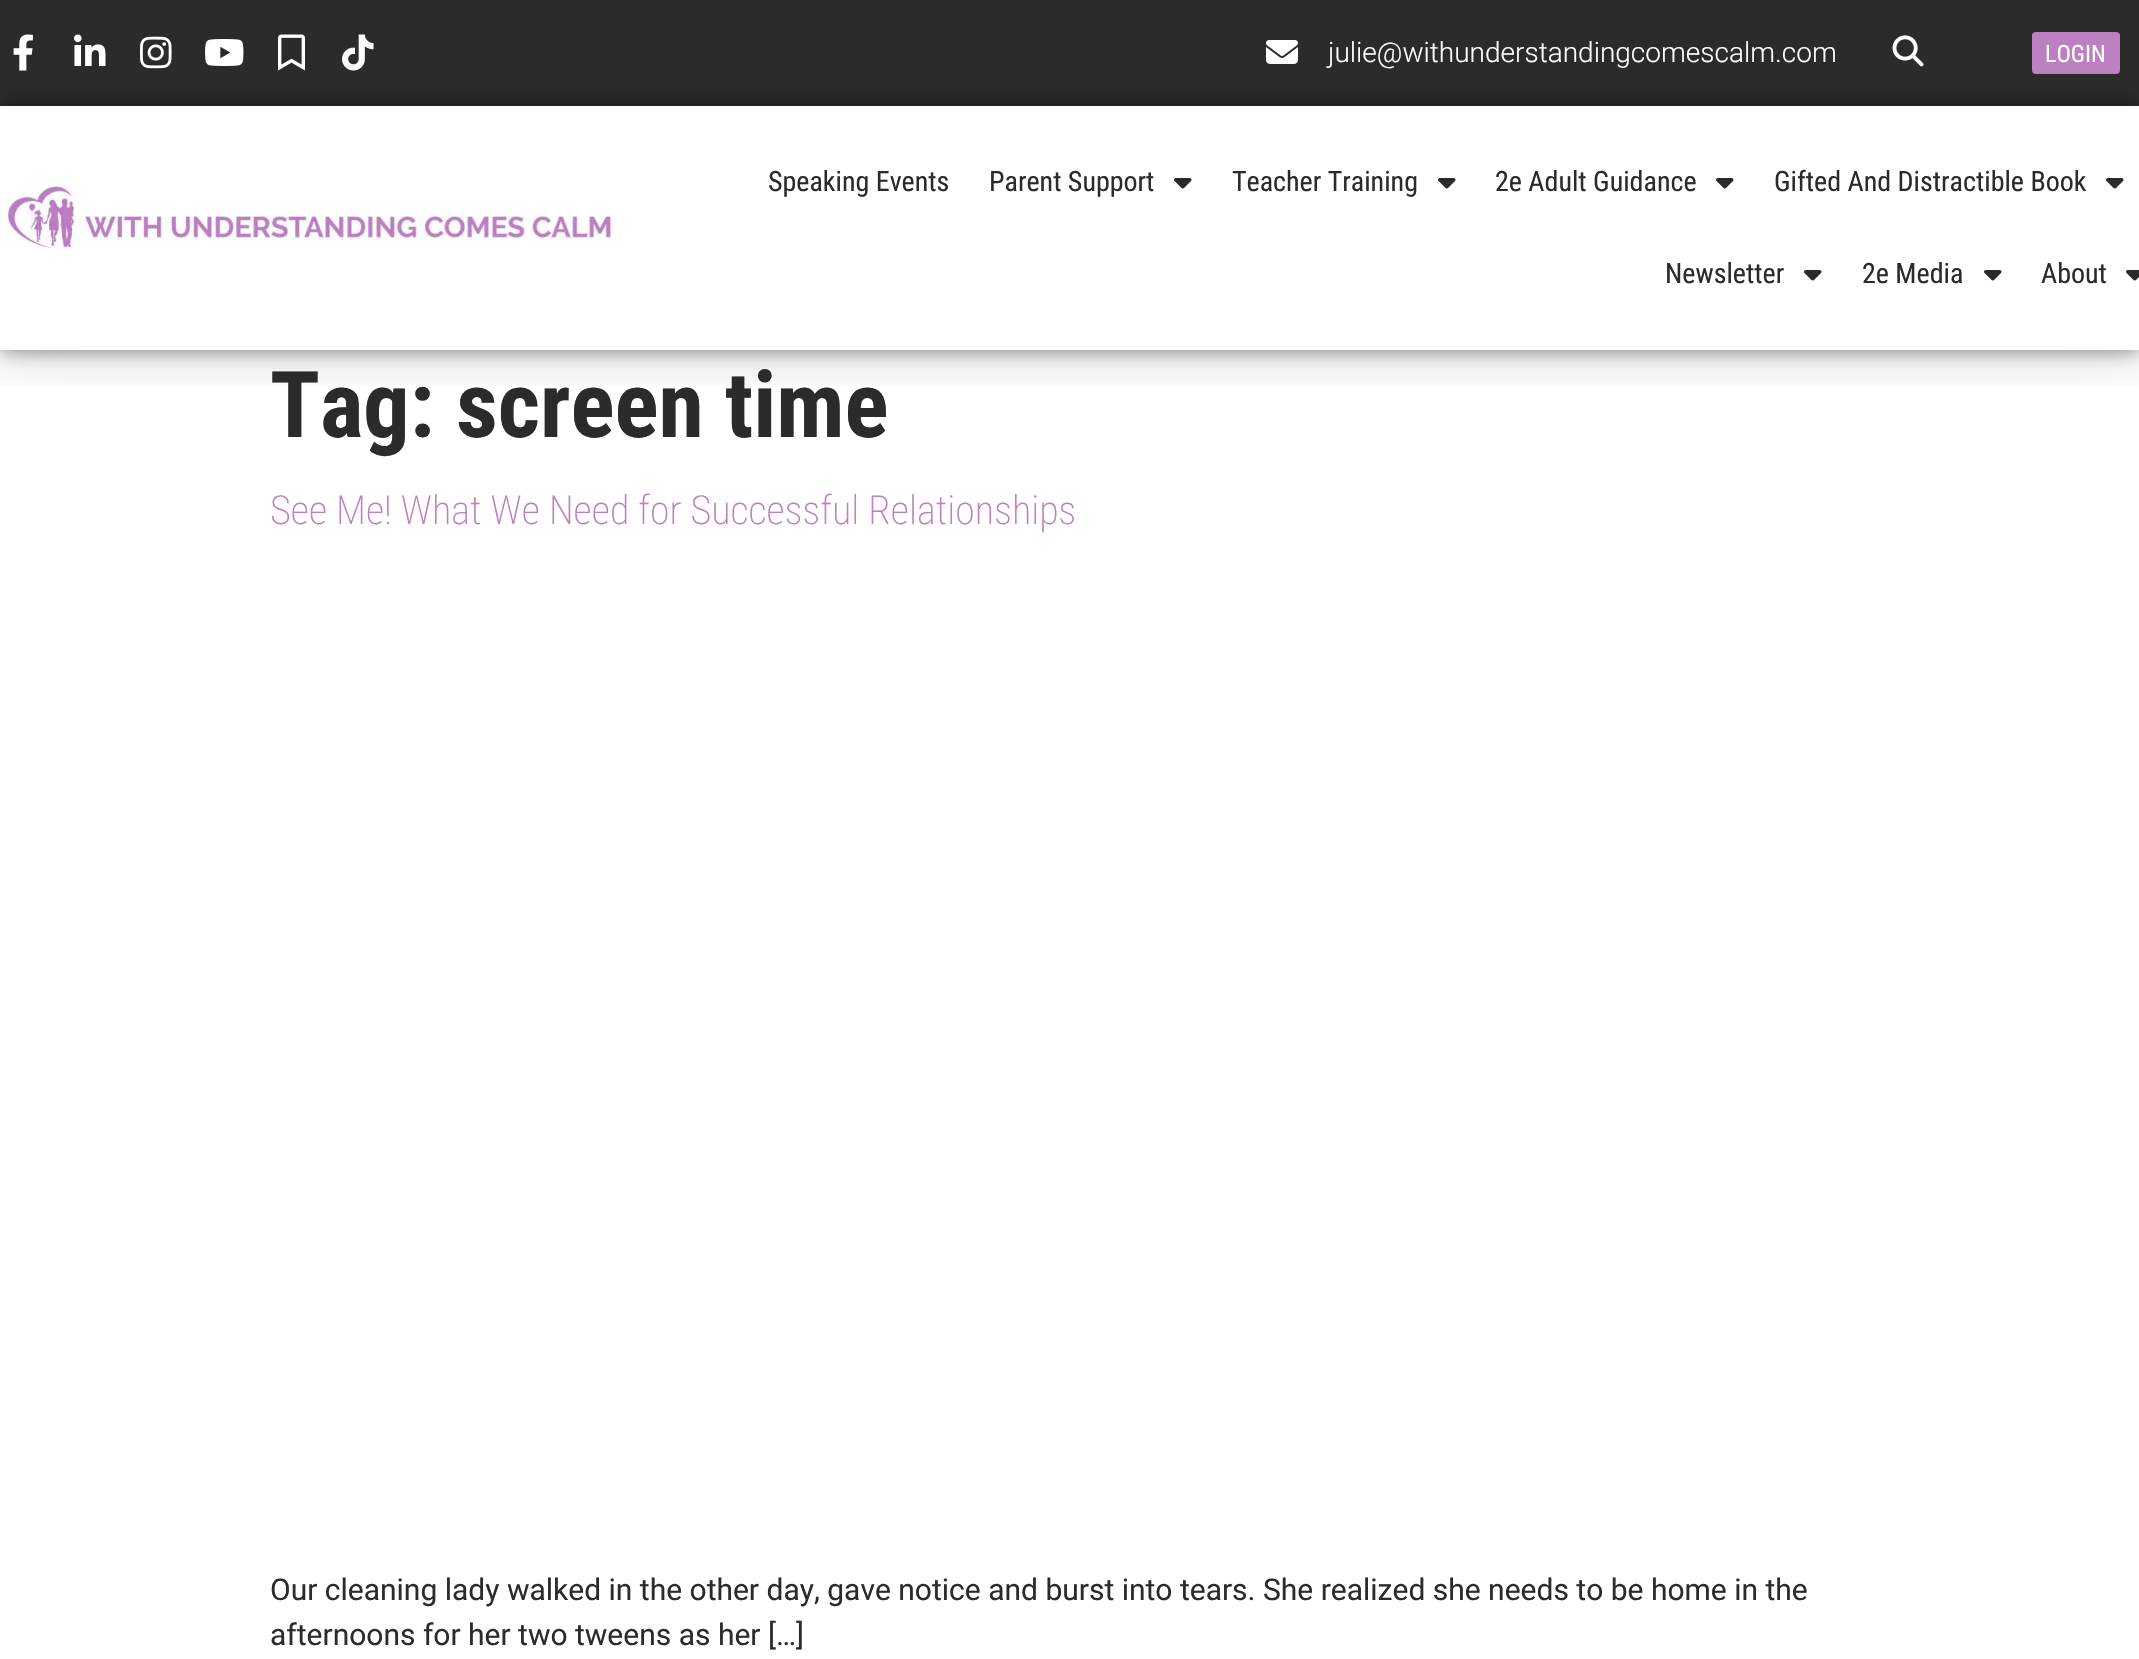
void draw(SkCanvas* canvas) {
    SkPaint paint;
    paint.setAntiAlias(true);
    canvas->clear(0xFFFFFFFF);
    canvas->save();
    canvas->clipRect(SkRect::MakeXYWH(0, 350, 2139, 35));
    paint.setColor(0x1A000000);
    paint.setMaskFilter(SkMaskFilter::MakeBlur(kNormal_SkBlurStyle, 30));
    canvas->drawRect(SkRect::MakeXYWH(0, 10, 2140, 350), paint);
    paint.setMaskFilter(nullptr);
    canvas->restore();
    paint.setColor(0xFF2B2B2B);
    canvas->drawRect(SkRect::MakeXYWH(0, 0, 2139, 106), paint);
    canvas->drawImageRect(SkImages::DeferredFromEncodedData(SkData::MakeFromFileName("img1.png")), SkRect::MakeXYWH(13, 34, 20, 37), SkSamplingOptions());
    canvas->drawImageRect(SkImages::DeferredFromEncodedData(SkData::MakeFromFileName("img2.png")), SkRect::MakeXYWH(74, 34, 32, 32), SkSamplingOptions());
    canvas->drawImageRect(SkImages::DeferredFromEncodedData(SkData::MakeFromFileName("img3.png")), SkRect::MakeXYWH(140, 36, 32, 33), SkSamplingOptions());
    canvas->drawImageRect(SkImages::DeferredFromEncodedData(SkData::MakeFromFileName("img4.png")), SkRect::MakeXYWH(205, 39, 39, 27), SkSamplingOptions());
    canvas->drawImageRect(SkImages::DeferredFromEncodedData(SkData::MakeFromFileName("img5.png")), SkRect::MakeXYWH(278, 34, 27, 37), SkSamplingOptions());
    canvas->drawImageRect(SkImages::DeferredFromEncodedData(SkData::MakeFromFileName("img6.png")), SkRect::MakeXYWH(342, 34, 32, 37), SkSamplingOptions());
    canvas->drawImageRect(SkImages::DeferredFromEncodedData(SkData::MakeFromFileName("img7.png")), SkRect::MakeXYWH(1266, 40, 32, 24), SkSamplingOptions());
    SkFont font1(fontMgr->matchFamilyStyle("Roboto", SkFontStyle(300, SkFontStyle::kNormal_Width, SkFontStyle::kUpright_Slant)), 28);
    font1.setSubpixel(true);
    paint.setColor(0xFFFFFFFF);
    canvas->drawString("julie@withunderstandingcomescalm.com", 1328, 62, font1, paint);
    canvas->drawImageRect(SkImages::DeferredFromEncodedData(SkData::MakeFromFileName("img8.png")), SkRect::MakeXYWH(1892, 35, 32, 32), SkSamplingOptions());
    paint.setColor(0xFFBC7FC1);
    canvas->drawRoundRect(SkRect::MakeXYWH(2035, 35, 82, 36), 1, 1, paint);
    paint.setStyle(SkPaint::kStroke_Style);
    paint.setStrokeWidth(6);
    canvas->drawRoundRect(SkRect::MakeXYWH(2035, 35, 82, 36), 1, 1, paint);
    SkFont font2(fontMgr->matchFamilyStyle("Roboto Condensed", SkFontStyle::Normal()), 24);
    font2.setSubpixel(true);
    paint.setStyle(SkPaint::kFill_Style);
    paint.setColor(0xFFFFFFFF);
    canvas->drawString("LOGIN", 2045, 62, font2, paint);
    canvas->save();
    canvas->clipPath(SkPathBuilder(SkPathFillType::kEvenOdd).moveTo(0, 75).lineTo(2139, 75).lineTo(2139, 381).lineTo(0, 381).close().moveTo(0, 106).lineTo(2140, 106).lineTo(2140, 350).lineTo(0, 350).close().detach(), true);
    paint.setColor(0x80000000);
    paint.setMaskFilter(SkMaskFilter::MakeBlur(kNormal_SkBlurStyle, 10));
    canvas->drawRect(SkRect::MakeXYWH(0, 106, 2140, 244), paint);
    paint.setMaskFilter(nullptr);
    canvas->restore();
    canvas->drawImageRect(SkImages::DeferredFromEncodedData(SkData::MakeFromFileName("img9.png")), SkRect::MakeXYWH(6, 182, 606, 69), SkSamplingOptions());
    SkFont font3(fontMgr->matchFamilyStyle("Roboto Condensed", SkFontStyle::Normal()), 28);
    font3.setSubpixel(true);
    paint.setColor(0xFF2B2B2B);
    canvas->drawString("Speaking Events", 768, 191, font3, paint);
    canvas->drawString("Parent Support", 989, 191, font3, paint);
    canvas->drawImageRect(SkImages::DeferredFromEncodedData(SkData::MakeFromFileName("img10.png")), SkRect::MakeXYWH(1174, 178, 18, 11), SkSamplingOptions());
    canvas->drawString("Teacher Training", 1232, 191, font3, paint);
    canvas->drawImageRect(SkImages::DeferredFromEncodedData(SkData::MakeFromFileName("img10.png")), SkRect::MakeXYWH(1438, 178, 18, 11), SkSamplingOptions());
    canvas->drawString("2e Adult Guidance", 1495, 191, font3, paint);
    canvas->drawImageRect(SkImages::DeferredFromEncodedData(SkData::MakeFromFileName("img10.png")), SkRect::MakeXYWH(1716, 178, 18, 11), SkSamplingOptions());
    canvas->drawString("Gifted And Distractible Book", 1774, 191, font3, paint);
    canvas->drawImageRect(SkImages::DeferredFromEncodedData(SkData::MakeFromFileName("img10.png")), SkRect::MakeXYWH(2106, 178, 18, 11), SkSamplingOptions());
    canvas->drawString("Newsletter", 1665, 283, font3, paint);
    canvas->drawImageRect(SkImages::DeferredFromEncodedData(SkData::MakeFromFileName("img10.png")), SkRect::MakeXYWH(1804, 270, 18, 11), SkSamplingOptions());
    canvas->drawString("2e Media", 1862, 283, font3, paint);
    canvas->drawImageRect(SkImages::DeferredFromEncodedData(SkData::MakeFromFileName("img10.png")), SkRect::MakeXYWH(1984, 270, 18, 11), SkSamplingOptions());
    canvas->drawString("About", 2041, 283, font3, paint);
    canvas->drawImageRect(SkImages::DeferredFromEncodedData(SkData::MakeFromFileName("img11.png")), SkRect::MakeXYWH(2126, 270, 13, 11), SkSamplingOptions());
    SkFont font4(fontMgr->matchFamilyStyle("Roboto Condensed", SkFontStyle::Bold()), 92);
    font4.setSubpixel(true);
    canvas->drawString("Tag: screen time", 270, 437, font4, paint);
    SkFont font5(fontMgr->matchFamilyStyle("Roboto Condensed", SkFontStyle(200, SkFontStyle::kNormal_Width, SkFontStyle::kUpright_Slant)), 40);
    font5.setSubpixel(true);
    paint.setColor(0xFFBC7FC1);
    canvas->drawString("See Me! What We Need for Successful Relationships", 270, 524, font5, paint);
    SkFont font6(fontMgr->matchFamilyStyle("Roboto", SkFontStyle::Normal()), 30);
    font6.setSubpixel(true);
    paint.setColor(0xFF2B2B2B);
    canvas->drawString("Our cleaning lady walked in the other day, gave notice and burst into tears. She realized she needs to be home in the", 270, 1600, font6, paint);
    canvas->drawString("afternoons for her two tweens as her […]", 270, 1645, font6, paint);
}
